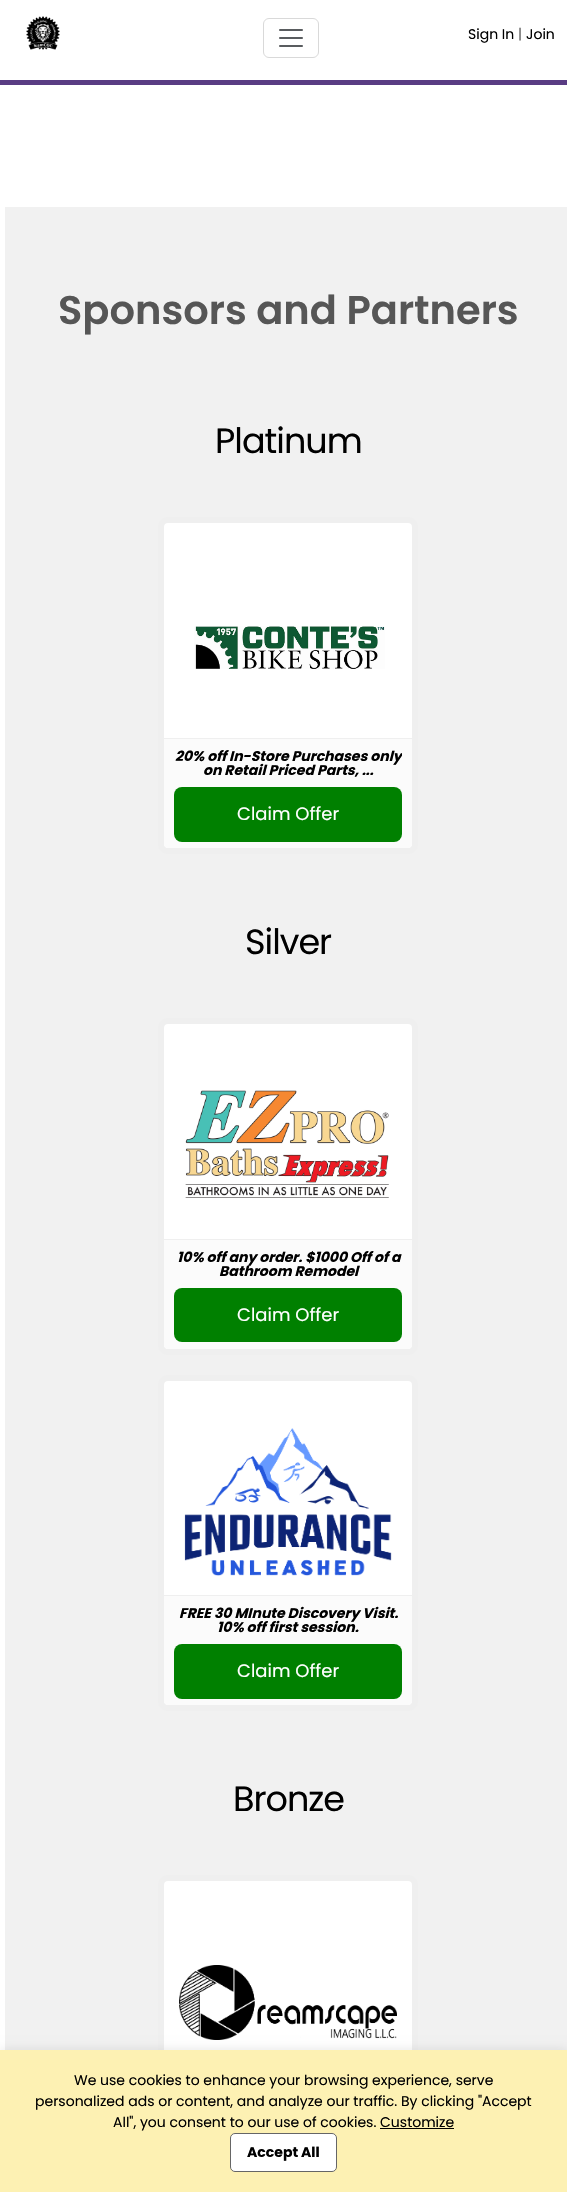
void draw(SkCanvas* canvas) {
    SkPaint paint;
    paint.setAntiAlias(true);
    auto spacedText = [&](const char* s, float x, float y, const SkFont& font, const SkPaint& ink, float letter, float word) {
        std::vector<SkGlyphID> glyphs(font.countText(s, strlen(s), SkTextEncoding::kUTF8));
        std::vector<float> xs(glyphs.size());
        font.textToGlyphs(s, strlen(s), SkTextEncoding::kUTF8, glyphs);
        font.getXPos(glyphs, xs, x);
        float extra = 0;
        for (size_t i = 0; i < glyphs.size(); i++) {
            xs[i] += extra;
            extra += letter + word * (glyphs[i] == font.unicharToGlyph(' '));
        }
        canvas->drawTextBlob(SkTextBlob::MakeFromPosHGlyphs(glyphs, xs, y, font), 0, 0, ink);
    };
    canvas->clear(0xFFFFFFFF);
    paint.setColor(0xFF593C83);
    canvas->drawRect(SkRect::MakeXYWH(0, 80, 567, 5), paint);
    canvas->drawImageRect(SkImages::DeferredFromEncodedData(SkData::MakeFromFileName("img1.png")), SkRect::MakeXYWH(26, 16, 34, 34), SkSamplingOptions());
    paint.setStyle(SkPaint::kStroke_Style);
    paint.setStrokeWidth(1);
    paint.setColor(0xFFD9D9D9);
    canvas->drawRoundRect(SkRect::MakeXYWH(263.5f, 18.5f, 55, 39), 5.5f, 5.5f, paint);
    canvas->drawImageRect(SkImages::DeferredFromEncodedData(SkData::MakeFromFileName("img2.png")), SkRect::MakeXYWH(279, 29, 24, 18), SkSamplingOptions());
    SkFont font1(fontMgr->matchFamilyStyle("Poppins", SkFontStyle::Normal()), 14);
    font1.setSubpixel(true);
    paint.setStyle(SkPaint::kFill_Style);
    paint.setColor(0xFF000000);
    canvas->drawString("Sign In", 468, 39, font1, paint);
    paint.setColor(0xFF636363);
    canvas->drawString("|", 518, 39, font1, paint);
    paint.setColor(0xFF000000);
    canvas->drawString("Join", 526, 39, font1, paint);
    paint.setColor(0xFFF1F1F1);
    canvas->drawRect(SkRect::MakeXYWH(5, 207, 562, 1843), paint);
    SkFont font2(fontMgr->matchFamilyStyle("Poppins", SkFontStyle(600, SkFontStyle::kNormal_Width, SkFontStyle::kUpright_Slant)), 40);
    font2.setSubpixel(true);
    paint.setColor(0xFF565656);
    canvas->drawString("Sponsors and Partners", 58, 324, font2, paint);
    SkFont font3(fontMgr->matchFamilyStyle("Poppins", SkFontStyle::Normal()), 35);
    font3.setSubpixel(true);
    paint.setColor(0xFF000000);
    spacedText("Platinum", 215, 453, font3, paint, -1, 0);
    paint.setColor(0xFFFFFFFF);
    canvas->drawRoundRect(SkRect::MakeXYWH(161, 520, 254, 331), 7, 7, paint);
    paint.setStyle(SkPaint::kStroke_Style);
    paint.setStrokeWidth(6);
    paint.setColor(0xFFEFEFEF);
    canvas->drawRoundRect(SkRect::MakeXYWH(161, 520, 254, 331), 7, 7, paint);
    canvas->drawImageRect(SkImages::DeferredFromEncodedData(SkData::MakeFromFileName("img3.png")), SkRect::MakeXYWH(194, 626, 191, 43), SkSamplingOptions());
    paint.setStyle(SkPaint::kFill_Style);
    paint.setColor(0xFFFBFBFB);
    canvas->drawPath(SkPathBuilder().moveTo(164, 739).lineTo(412, 739).lineTo(412, 844).cubicTo(412, 846, 410, 848, 408, 848).lineTo(168, 848).cubicTo(166, 848, 164, 846, 164, 844).close().detach(), paint);
    paint.setColor(0xFFEFEFEF);
    canvas->drawRect(SkRect::MakeXYWH(164, 738, 248, 1), paint);
    SkFont font4(fontMgr->matchFamilyStyle("Poppins", SkFontStyle::BoldItalic()), 14);
    font4.setSubpixel(true);
    paint.setColor(0xFF000000);
    canvas->drawString("20% off", 175, 761, font4, paint);
    canvas->save();
    canvas->clipRect(SkRect::MakeXYWH(174, 749, 228, 34));
    canvas->drawString("In-Store Purchases only", 229, 761, font4, paint);
    canvas->restore();
    canvas->drawString("on Retail Priced Parts, ...", 203, 775, font4, paint);
    paint.setColor(0xFF008000);
    canvas->drawRoundRect(SkRect::MakeXYWH(174, 787, 228, 55), 8, 8, paint);
    SkFont font5(fontMgr->matchFamilyStyle("Poppins", SkFontStyle::Normal()), 18);
    font5.setSubpixel(true);
    paint.setColor(0xFFFFFFFF);
    canvas->drawString("Claim Offer", 237, 820, font5, paint);
    paint.setColor(0xFF000000);
    spacedText("Silver", 245, 954, font3, paint, -1, 0);
    paint.setColor(0xFFFFFFFF);
    canvas->drawRoundRect(SkRect::MakeXYWH(161, 1021, 254, 331), 7, 7, paint);
    paint.setStyle(SkPaint::kStroke_Style);
    paint.setColor(0xFFEFEFEF);
    canvas->drawRoundRect(SkRect::MakeXYWH(161, 1021, 254, 331), 7, 7, paint);
    canvas->drawImageRect(SkImages::DeferredFromEncodedData(SkData::MakeFromFileName("img4.png")), SkRect::MakeXYWH(185, 1090, 204, 108), SkSamplingOptions());
    paint.setStyle(SkPaint::kFill_Style);
    paint.setColor(0xFFFBFBFB);
    canvas->drawPath(SkPathBuilder().moveTo(164, 1240).lineTo(412, 1240).lineTo(412, 1345).cubicTo(412, 1347, 410, 1349, 408, 1349).lineTo(168, 1349).cubicTo(166, 1349, 164, 1347, 164, 1345).close().detach(), paint);
    paint.setColor(0xFFEFEFEF);
    canvas->drawRect(SkRect::MakeXYWH(164, 1239, 248, 1), paint);
    paint.setColor(0xFF000000);
    canvas->drawString("10% off any order. $1000 Off of a", 177, 1262, font4, paint);
    canvas->drawString("Bathroom Remodel", 219, 1276, font4, paint);
    paint.setColor(0xFF008000);
    canvas->drawRoundRect(SkRect::MakeXYWH(174, 1288, 228, 54), 8, 8, paint);
    paint.setColor(0xFFFFFFFF);
    canvas->drawString("Claim Offer", 237, 1321, font5, paint);
    canvas->drawRoundRect(SkRect::MakeXYWH(161, 1378, 254, 330), 7, 7, paint);
    paint.setStyle(SkPaint::kStroke_Style);
    paint.setColor(0xFFEFEFEF);
    canvas->drawRoundRect(SkRect::MakeXYWH(161, 1378, 254, 330), 7, 7, paint);
    canvas->drawImageRect(SkImages::DeferredFromEncodedData(SkData::MakeFromFileName("img5.png")), SkRect::MakeXYWH(184, 1428, 208, 148), SkSamplingOptions());
    paint.setStyle(SkPaint::kFill_Style);
    paint.setColor(0xFFFBFBFB);
    canvas->drawPath(SkPathBuilder().moveTo(164, 1596).lineTo(412, 1596).lineTo(412, 1701).cubicTo(412, 1703, 410, 1705, 408, 1705).lineTo(168, 1705).cubicTo(166, 1705, 164, 1703, 164, 1701).close().detach(), paint);
    paint.setColor(0xFFEFEFEF);
    canvas->drawRect(SkRect::MakeXYWH(164, 1595, 248, 1), paint);
    paint.setColor(0xFF000000);
    canvas->drawString("FREE 30 MInute Discovery Visit.", 179, 1618, font4, paint);
    canvas->drawString("10% off first session.", 217, 1632, font4, paint);
    paint.setColor(0xFF008000);
    canvas->drawRoundRect(SkRect::MakeXYWH(174, 1644, 228, 55), 8, 8, paint);
    paint.setColor(0xFFFFFFFF);
    canvas->drawString("Claim Offer", 237, 1677, font5, paint);
    paint.setColor(0xFF000000);
    spacedText("Bronze", 233, 1811, font3, paint, -1, 0);
    paint.setColor(0xFFFFFFFF);
    canvas->drawRoundRect(SkRect::MakeXYWH(161, 1878, 254, 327), 7, 7, paint);
    paint.setStyle(SkPaint::kStroke_Style);
    paint.setColor(0xFFEFEFEF);
    canvas->drawRoundRect(SkRect::MakeXYWH(161, 1878, 254, 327), 7, 7, paint);
    canvas->drawImageRect(SkImages::DeferredFromEncodedData(SkData::MakeFromFileName("img6.png")), SkRect::MakeXYWH(179, 1965, 218, 75), SkSamplingOptions());
    paint.setStyle(SkPaint::kFill_Style);
    paint.setColor(0x1A000000);
    paint.setMaskFilter(SkMaskFilter::MakeBlur(kNormal_SkBlurStyle, 5));
    canvas->drawRect(SkRect::MakeXYWH(0, 2050, 567, 142), paint);
    paint.setMaskFilter(nullptr);
    paint.setColor(0xFFFDF1B3);
    canvas->drawRect(SkRect::MakeXYWH(0, 2050, 567, 142), paint);
    paint.setColor(0xFF000000);
    canvas->drawString("We use cookies to enhance your browsing experience, serve", 74, 2085, font1, paint);
    canvas->drawString("personalized ads or content, and analyze our traffic. By clicking \"Accept", 35, 2106, font1, paint);
    canvas->drawString("All\", you consent to our use of cookies. Customize", 113, 2127, font1, paint);
    canvas->drawRect(SkRect::MakeXYWH(380, 2128, 74, 1), paint);
    paint.setColor(0xFFFFFFFF);
    canvas->drawRoundRect(SkRect::MakeXYWH(230.5f, 2133.5f, 106, 38), 4.5f, 4.5f, paint);
    paint.setStyle(SkPaint::kStroke_Style);
    paint.setStrokeWidth(1);
    paint.setColor(0xFF666666);
    canvas->drawRoundRect(SkRect::MakeXYWH(230.5f, 2133.5f, 106, 38), 4.5f, 4.5f, paint);
    SkFont font6(fontMgr->matchFamilyStyle("Poppins", SkFontStyle::Bold()), 14);
    font6.setSubpixel(true);
    paint.setStyle(SkPaint::kFill_Style);
    paint.setColor(0xFF000000);
    canvas->drawString("Accept All", 247, 2157, font6, paint);
}
